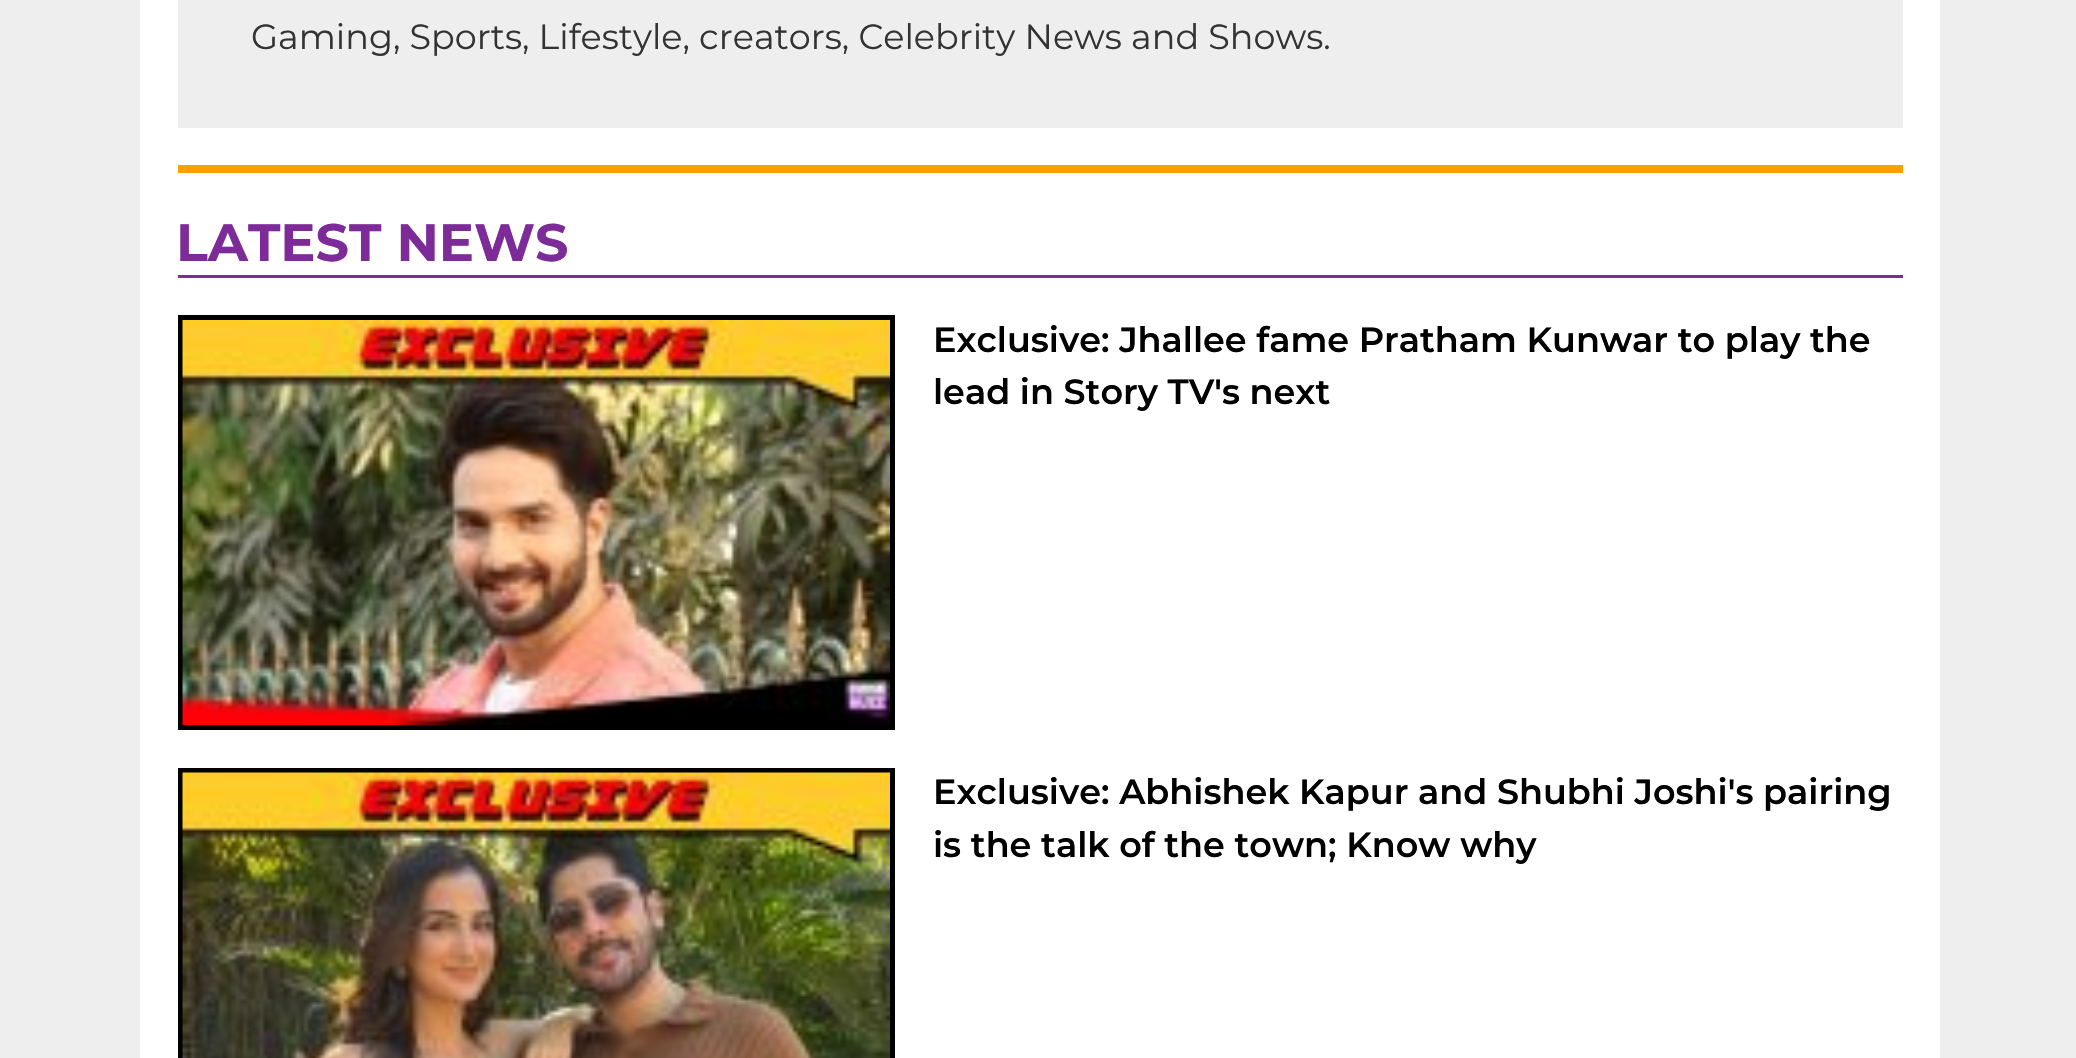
void draw(SkCanvas* canvas) {
    SkPaint paint;
    paint.setAntiAlias(true);
    canvas->clear(0xFFEEEEEE);
    paint.setColor(0xFFFFFFFF);
    canvas->drawRect(SkRect::MakeXYWH(140, 0, 1800, 1058), paint);
    paint.setColor(0xFFEEEEEE);
    canvas->drawRect(SkRect::MakeXYWH(178, 0, 1725, 128), paint);
    SkFont font1(fontMgr->matchFamilyStyle("Montserrat", SkFontStyle::Normal()), 35);
    font1.setSubpixel(true);
    paint.setColor(0xFF333333);
    canvas->drawString("Gaming, Sports, Lifestyle, creators, Celebrity News and Shows.", 251, 49, font1, paint);
    paint.setColor(0xFFFFA000);
    canvas->drawRect(SkRect::MakeXYWH(178, 165, 1725, 8), paint);
    paint.setColor(0xFF7D2B99);
    canvas->drawRect(SkRect::MakeXYWH(178, 275, 1725, 3), paint);
    SkFont font2(fontMgr->matchFamilyStyle("Montserrat", SkFontStyle::Bold()), 52.5f);
    font2.setSubpixel(true);
    canvas->drawString("LATEST NEWS", 176, 261, font2, paint);
    paint.setStyle(SkPaint::kStroke_Style);
    paint.setStrokeWidth(5);
    paint.setColor(0xFF000000);
    canvas->drawRect(SkRect::MakeXYWH(180.5f, 317.5f, 712, 410), paint);
    canvas->drawImageRect(SkImages::DeferredFromEncodedData(SkData::MakeFromFileName("img1.png")), SkRect::MakeXYWH(182, 320, 708, 405), SkSamplingOptions());
    SkFont font3(fontMgr->matchFamilyStyle("Montserrat", SkFontStyle(600, SkFontStyle::kNormal_Width, SkFontStyle::kUpright_Slant)), 35);
    font3.setSubpixel(true);
    paint.setStyle(SkPaint::kFill_Style);
    canvas->drawString("Exclusive: Jhallee fame Pratham Kunwar to play the", 933, 352, font3, paint);
    canvas->drawString("lead in Story TV's next", 933, 404, font3, paint);
    paint.setStyle(SkPaint::kStroke_Style);
    canvas->drawRect(SkRect::MakeXYWH(180.5f, 770.5f, 712, 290), paint);
    canvas->drawImageRect(SkImages::DeferredFromEncodedData(SkData::MakeFromFileName("img2.png")), SkRect::MakeXYWH(182, 772, 708, 286), SkSamplingOptions());
    paint.setStyle(SkPaint::kFill_Style);
    canvas->drawString("Exclusive: Abhishek Kapur and Shubhi Joshi's pairing", 933, 804, font3, paint);
    canvas->drawString("is the talk of the town; Know why", 933, 857, font3, paint);
}
